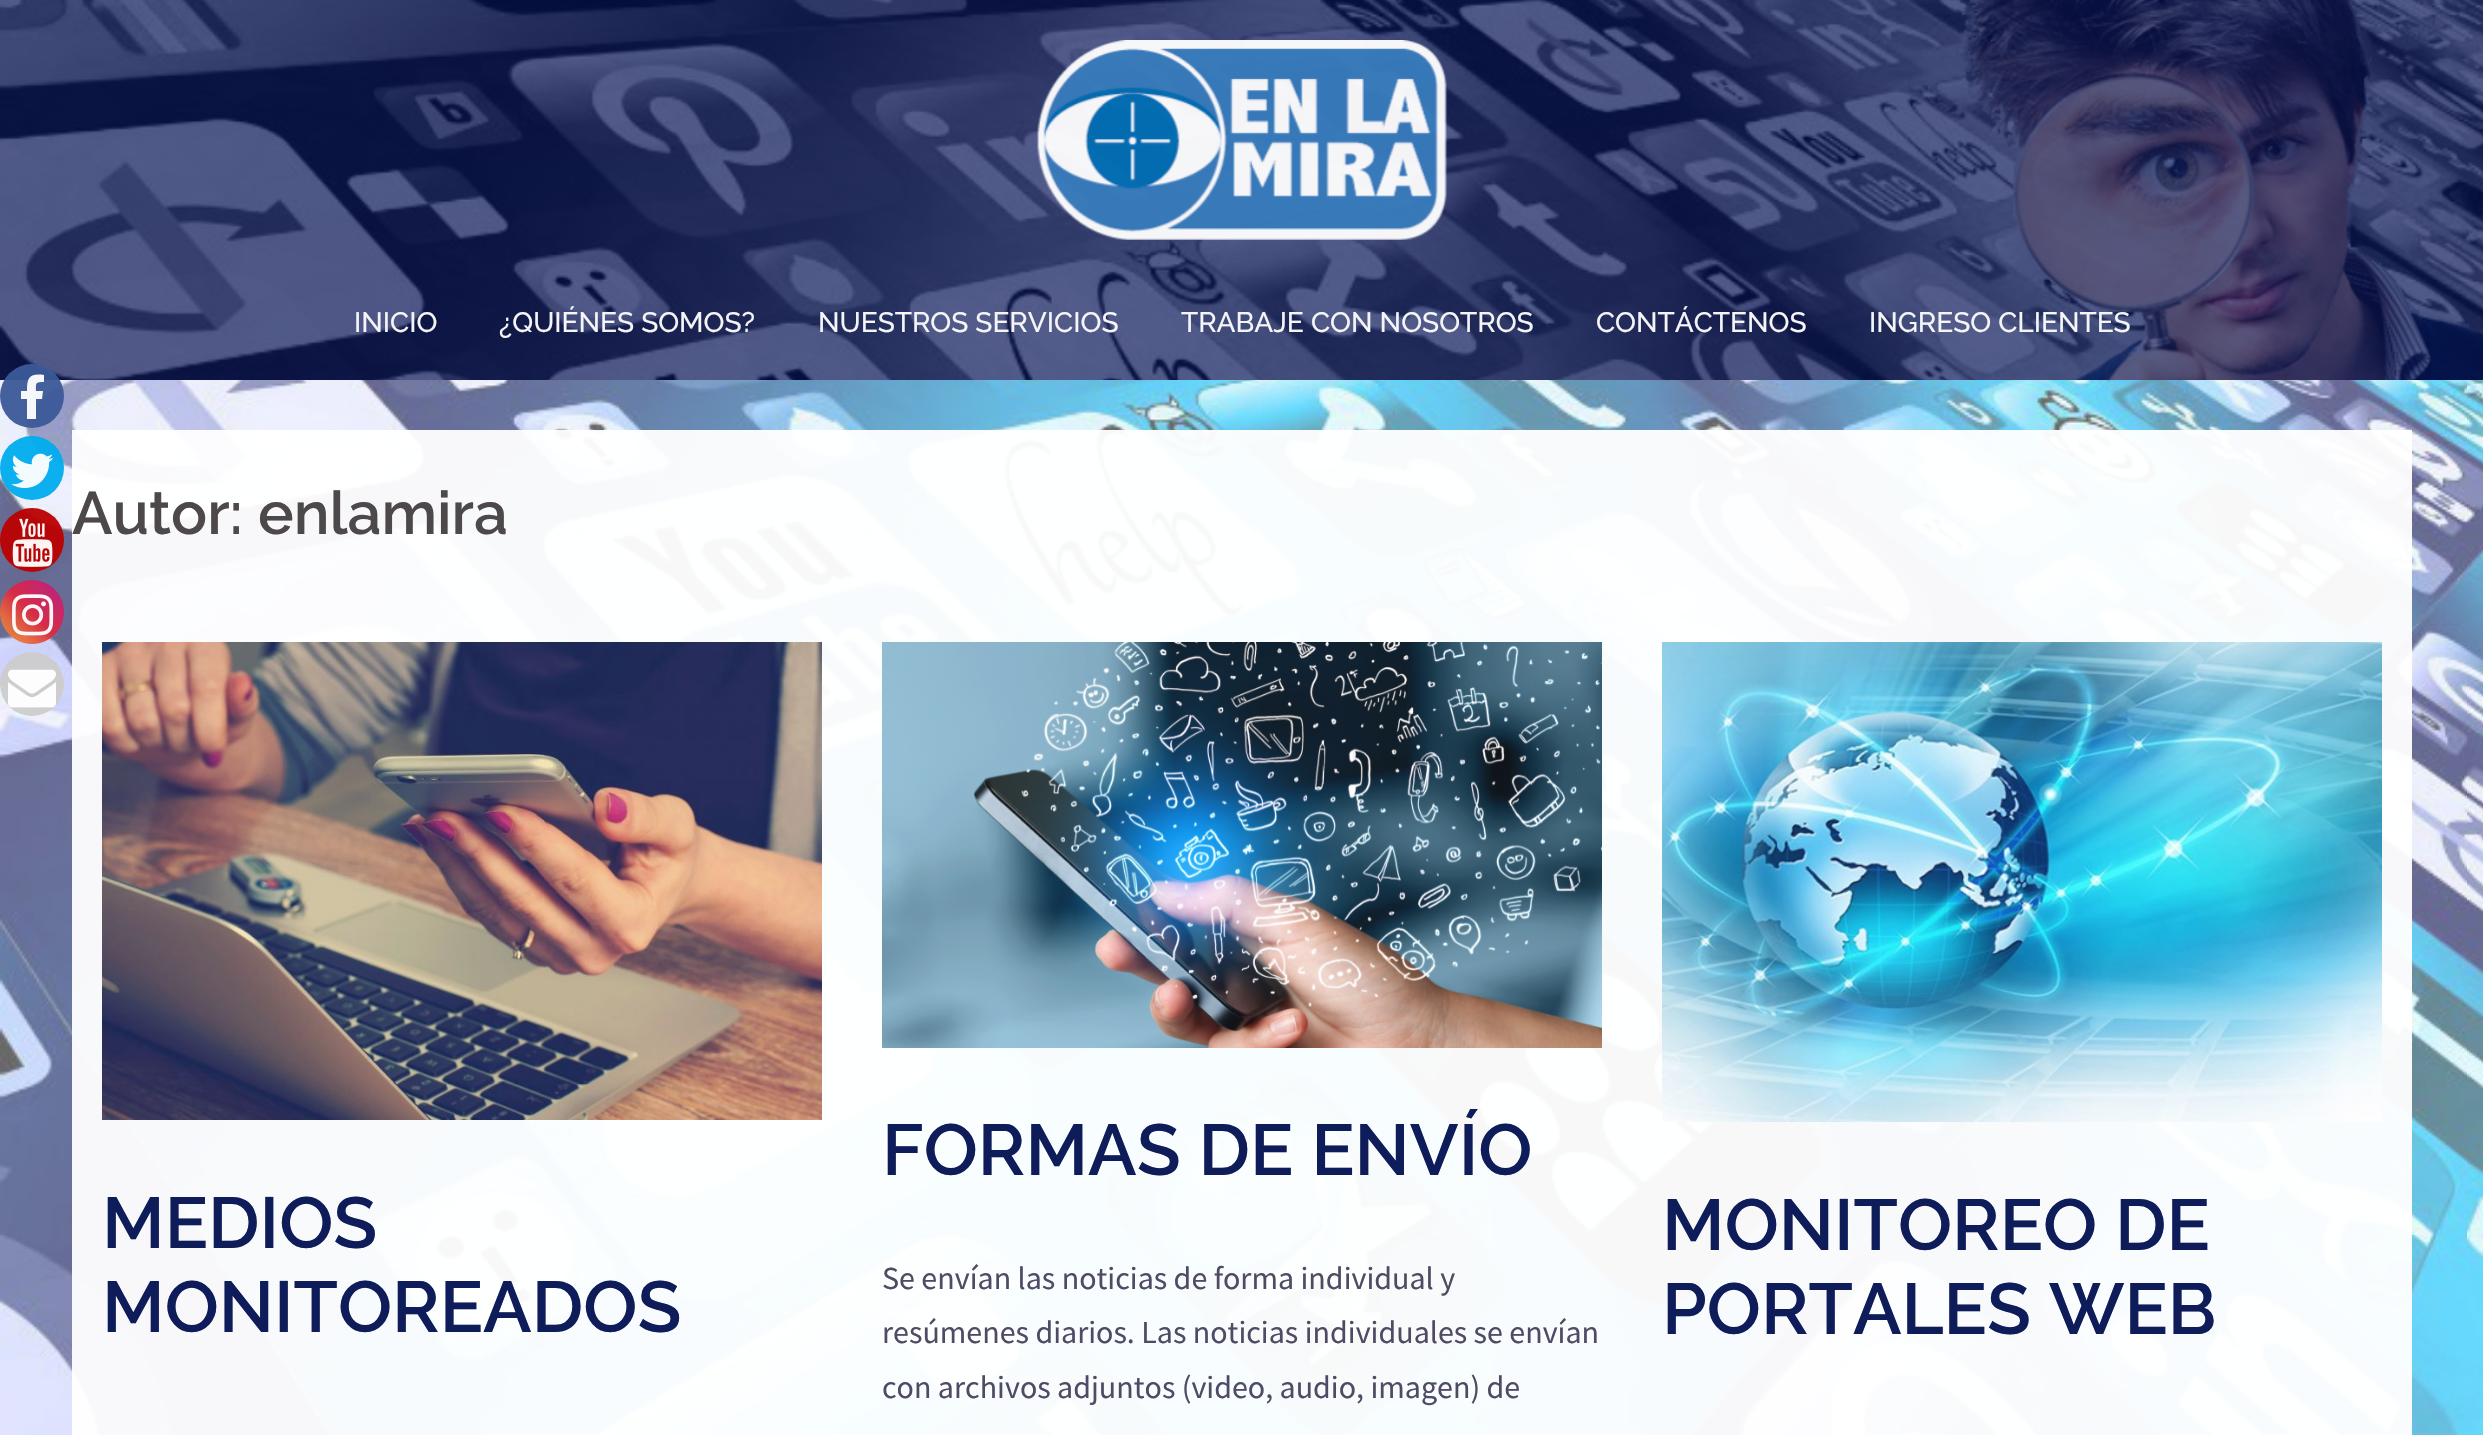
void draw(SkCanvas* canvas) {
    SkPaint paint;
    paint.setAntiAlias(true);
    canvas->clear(0xFFFFFFFF);
    canvas->drawImageRect(SkImages::DeferredFromEncodedData(SkData::MakeFromFileName("img1.png")), SkRect::MakeXYWH(0, 0, 2483, 1435), SkSamplingOptions());
    canvas->drawImageRect(SkImages::DeferredFromEncodedData(SkData::MakeFromFileName("img6.png")), SkRect::MakeXYWH(0, 0, 2483, 380), SkSamplingOptions());
    paint.setColor(0xA8020F55);
    canvas->drawRect(SkRect::MakeXYWH(0, 0, 2483, 380), paint);
    paint.setColor(0xF23B5998);
    canvas->drawCircle(32, 396, 32, paint);
    paint.setColor(0xF2FFFFFF);
    canvas->drawPath(SkPathBuilder().moveTo(44, 375).lineTo(44, 382).cubicTo(35, 382, 36, 383, 36, 391).lineTo(43, 391).lineTo(42, 399).lineTo(36, 399).lineTo(36, 419).lineTo(27, 419).lineTo(27, 399).lineTo(21, 399).lineTo(21, 391).lineTo(27, 391).cubicTo(27, 378, 29, 373, 44, 375).close().detach(), paint);
    paint.setColor(0xF200ACED);
    canvas->drawCircle(32, 468, 32, paint);
    canvas->drawImageRect(SkImages::DeferredFromEncodedData(SkData::MakeFromFileName("img2.png")), SkRect::MakeXYWH(11, 453, 43, 35), SkSamplingOptions());
    paint.setColor(0xF2BB0000);
    canvas->drawCircle(32, 540, 32, paint);
    canvas->drawImageRect(SkImages::DeferredFromEncodedData(SkData::MakeFromFileName("img3.png")), SkRect::MakeXYWH(12, 518, 41, 49), SkSamplingOptions());
    canvas->drawImageRect(SkImages::DeferredFromEncodedData(SkData::MakeFromFileName("img4.png")), SkRect::MakeXYWH(12, 594, 42, 42), SkSamplingOptions());
    paint.setColor(0xF2CCCCCC);
    canvas->drawCircle(32, 684, 32, paint);
    canvas->drawImageRect(SkImages::DeferredFromEncodedData(SkData::MakeFromFileName("img5.png")), SkRect::MakeXYWH(8, 669, 48, 39), SkSamplingOptions());
    canvas->drawImageRect(SkImages::DeferredFromEncodedData(SkData::MakeFromFileName("img7.png")), SkRect::MakeXYWH(1037, 40, 410, 200), SkSamplingOptions());
    SkFont font1(fontMgr->matchFamilyStyle("Raleway", SkFontStyle(500, SkFontStyle::kNormal_Width, SkFontStyle::kUpright_Slant)), 28);
    font1.setSubpixel(true);
    paint.setColor(0xFFF5F5F8);
    canvas->drawString("INICIO", 354, 332, font1, paint);
    canvas->drawString("¿QUIÉNES SOMOS?", 499, 332, font1, paint);
    canvas->drawString("NUESTROS SERVICIOS", 818, 332, font1, paint);
    canvas->drawString("TRABAJE CON NOSOTROS", 1181, 332, font1, paint);
    canvas->drawString("CONTÁCTENOS", 1596, 332, font1, paint);
    canvas->drawString("INGRESO CLIENTES", 1869, 332, font1, paint);
    paint.setColor(0xF2FFFFFF);
    canvas->drawRect(SkRect::MakeXYWH(72, 430, 2340, 1005), paint);
    SkFont font2(fontMgr->matchFamilyStyle("Raleway", SkFontStyle(600, SkFontStyle::kNormal_Width, SkFontStyle::kUpright_Slant)), 60);
    font2.setSubpixel(true);
    paint.setColor(0xFF4D4849);
    canvas->drawString("Autor:", 72, 534, font2, paint);
    canvas->drawString("enlamira", 258, 534, font2, paint);
    canvas->drawImageRect(SkImages::DeferredFromEncodedData(SkData::MakeFromFileName("img8.png")), SkRect::MakeXYWH(102, 642, 720, 478), SkSamplingOptions());
    SkFont font3(fontMgr->matchFamilyStyle("Raleway", SkFontStyle(600, SkFontStyle::kNormal_Width, SkFontStyle::kUpright_Slant)), 72);
    font3.setSubpixel(true);
    paint.setColor(0xFF0E1C59);
    canvas->drawString("MEDIOS", 102, 1248, font3, paint);
    canvas->drawString("MONITOREADOS", 102, 1332, font3, paint);
    canvas->drawImageRect(SkImages::DeferredFromEncodedData(SkData::MakeFromFileName("img9.png")), SkRect::MakeXYWH(882, 642, 720, 406), SkSamplingOptions());
    canvas->drawString("FORMAS DE ENVÍO", 882, 1175, font3, paint);
    SkFont font4(fontMgr->matchFamilyStyle("Source Sans Pro", SkFontStyle::Normal()), 32);
    font4.setSubpixel(true);
    paint.setColor(0xFF504B65);
    canvas->drawString("Se envían las noticias de forma individual y", 882, 1289, font4, paint);
    canvas->drawString("resúmenes diarios. Las noticias individuales se envían", 882, 1343, font4, paint);
    canvas->drawString("con archivos adjuntos (video, audio, imagen) de", 882, 1398, font4, paint);
    canvas->drawImageRect(SkImages::DeferredFromEncodedData(SkData::MakeFromFileName("img10.png")), SkRect::MakeXYWH(1662, 642, 720, 480), SkSamplingOptions());
    paint.setColor(0xFF0E1C59);
    canvas->drawString("MONITOREO DE", 1662, 1250, font3, paint);
    canvas->drawString("PORTALES WEB", 1662, 1334, font3, paint);
}
